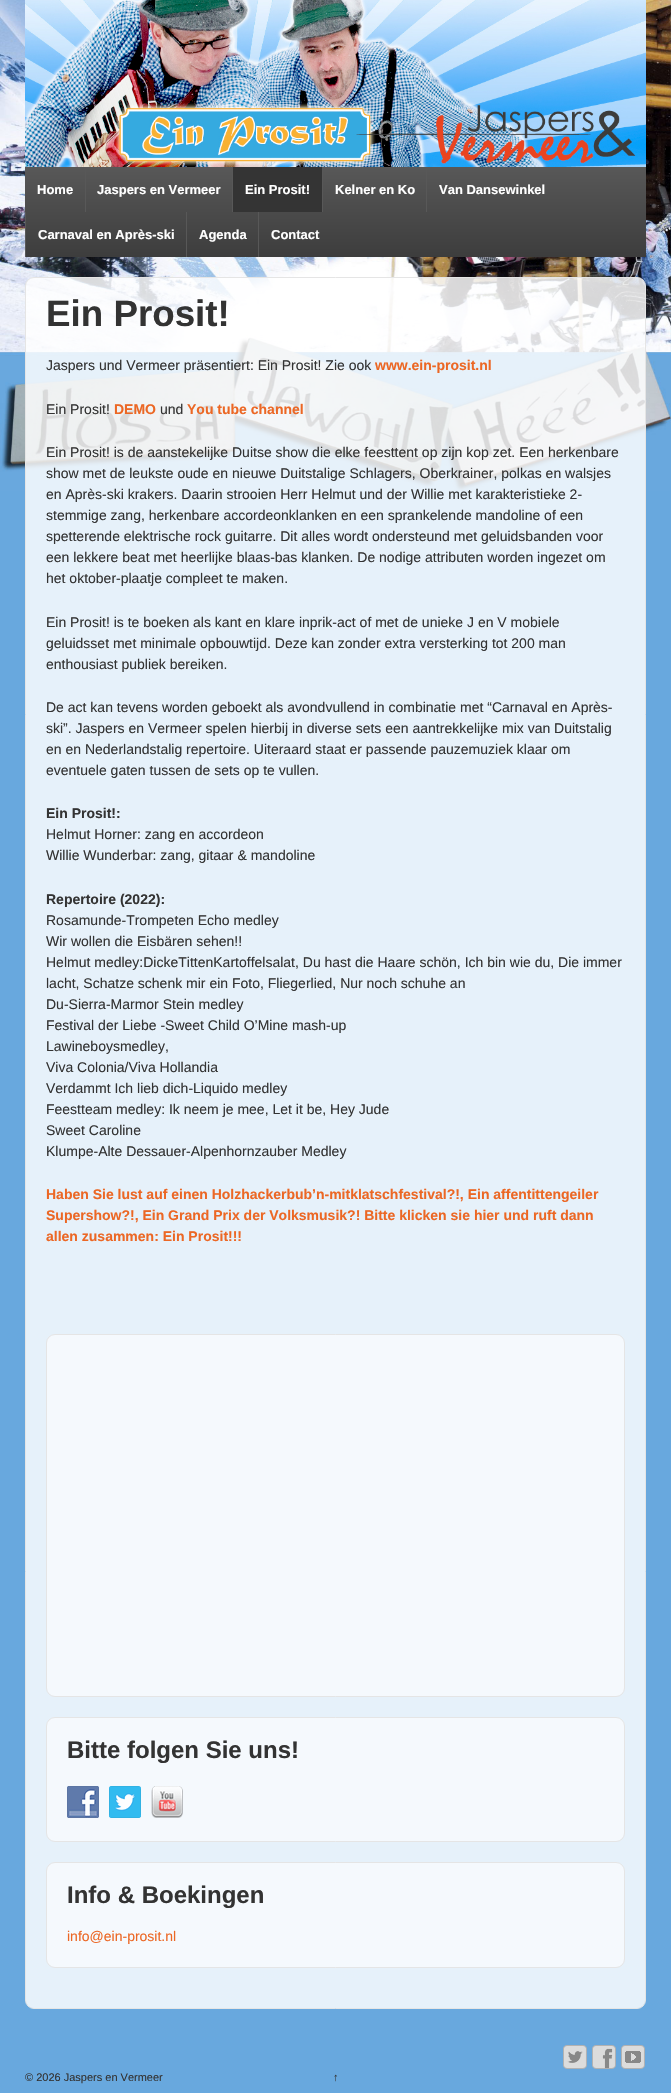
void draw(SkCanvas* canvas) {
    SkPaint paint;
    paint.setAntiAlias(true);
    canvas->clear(0xFF68A8DE);
    canvas->drawImageRect(SkImages::DeferredFromEncodedData(SkData::MakeFromFileName("img1.png")), SkRect::MakeXYWH(0, 0, 671, 491), SkSamplingOptions());
    canvas->drawImageRect(SkImages::DeferredFromEncodedData(SkData::MakeFromFileName("img2.png")), SkRect::MakeXYWH(25, 0, 621, 167), SkSamplingOptions());
    {
        const SkColor colors[] = {0xFF585858, 0xFF3D3D3D};
        const float stops[] = {0, 1};
        const SkPoint ends[] = {{336, 167}, {336, 257}};
        paint.setShader(SkGradientShader::MakeLinear(ends, colors, stops, 2, SkTileMode::kClamp));
        paint.setAlpha(255);
    }
    canvas->drawRect(SkRect::MakeXYWH(25, 167, 621, 90), paint);
    SkFont font1(fontMgr->matchFamilyStyle("Liberation Sans", SkFontStyle::Bold()), 13);
    font1.setSubpixel(true);
    paint.setShader(nullptr);
    paint.setColor(0xFFFFFFFF);
    canvas->drawString("Home", 37, 194, font1, paint);
    paint.setColor(0xFF585858);
    canvas->drawRect(SkRect::MakeXYWH(85, 167, 1, 45), paint);
    paint.setColor(0xFFFFFFFF);
    canvas->drawString("Jaspers en Vermeer", 97, 194, font1, paint);
    paint.setColor(0xFF343434);
    canvas->drawRect(SkRect::MakeXYWH(233, 167, 89, 45), paint);
    paint.setColor(0xFF585858);
    canvas->drawRect(SkRect::MakeXYWH(232, 167, 1, 45), paint);
    paint.setColor(0xFFFFFFFF);
    canvas->drawString("Ein Prosit!", 245, 194, font1, paint);
    paint.setColor(0xFF585858);
    canvas->drawRect(SkRect::MakeXYWH(322, 167, 1, 45), paint);
    paint.setColor(0xFFFFFFFF);
    canvas->drawString("Kelner en Ko", 335, 194, font1, paint);
    paint.setColor(0xFF585858);
    canvas->drawRect(SkRect::MakeXYWH(426, 167, 1, 45), paint);
    paint.setColor(0xFFFFFFFF);
    canvas->drawString("Van Dansewinkel", 439, 194, font1, paint);
    paint.setColor(0xFF585858);
    canvas->drawRect(SkRect::MakeXYWH(25, 212, 1, 45), paint);
    paint.setColor(0xFFFFFFFF);
    canvas->drawString("Carnaval en Après-ski", 38, 239, font1, paint);
    paint.setColor(0xFF585858);
    canvas->drawRect(SkRect::MakeXYWH(186, 212, 1, 45), paint);
    paint.setColor(0xFFFFFFFF);
    canvas->drawString("Agenda", 199, 239, font1, paint);
    paint.setColor(0xFF585858);
    canvas->drawRect(SkRect::MakeXYWH(258, 212, 1, 45), paint);
    paint.setColor(0xFFFFFFFF);
    canvas->drawString("Contact", 271, 239, font1, paint);
    paint.setColor(0xD4FFFFFF);
    canvas->drawRoundRect(SkRect::MakeXYWH(25.5f, 277.5f, 620, 1731), 8.5f, 8.5f, paint);
    paint.setStyle(SkPaint::kStroke_Style);
    paint.setStrokeWidth(1);
    paint.setColor(0xFFE5E5E5);
    canvas->drawRoundRect(SkRect::MakeXYWH(25.5f, 277.5f, 620, 1731), 8.5f, 8.5f, paint);
    SkFont font2(fontMgr->matchFamilyStyle("Liberation Sans", SkFontStyle::Bold()), 36.75f);
    font2.setSubpixel(true);
    paint.setStyle(SkPaint::kFill_Style);
    paint.setColor(0xFF333333);
    canvas->drawString("Ein Prosit!", 46, 326, font2, paint);
    SkFont font3(fontMgr->matchFamilyStyle("Liberation Sans", SkFontStyle::Normal()), 14);
    font3.setSubpixel(true);
    canvas->drawString("Jaspers und Vermeer präsentiert: Ein Prosit! Zie ook", 46, 370, font3, paint);
    SkFont font4(fontMgr->matchFamilyStyle("Liberation Sans", SkFontStyle::Bold()), 14);
    font4.setSubpixel(true);
    paint.setColor(0xFFEC6724);
    canvas->drawString("www.ein-prosit.nl", 375, 370, font4, paint);
    paint.setColor(0xFF333333);
    canvas->drawString("Ein Prosit!", 46, 414, font3, paint);
    paint.setColor(0xFFEC6724);
    canvas->drawString("DEMO", 114, 414, font4, paint);
    paint.setColor(0xFF333333);
    canvas->drawString("und", 160, 414, font3, paint);
    paint.setColor(0xFFEC6724);
    canvas->drawString("You tube channel", 187, 414, font4, paint);
    paint.setColor(0xFF333333);
    canvas->drawString("Ein Prosit! is de aanstekelijke Duitse show die elke feesttent op zijn kop zet. Een herkenbare", 46, 457, font3, paint);
    canvas->drawString("show met de leukste oude en nieuwe Duitstalige Schlagers, Oberkrainer, polkas en walsjes", 46, 478, font3, paint);
    canvas->drawString("en Après-ski krakers. Daarin strooien Herr Helmut und der Willie met karakteristieke 2-", 46, 499, font3, paint);
    canvas->drawString("stemmige zang, herkenbare accordeonklanken en een sprankelende mandoline of een", 46, 520, font3, paint);
    canvas->drawString("spetterende elektrische rock guitarre. Dit alles wordt ondersteund met geluidsbanden voor", 46, 541, font3, paint);
    canvas->drawString("een lekkere beat met heerlijke blaas-bas klanken. De nodige attributen worden ingezet om", 46, 562, font3, paint);
    canvas->drawString("het oktober-plaatje compleet te maken.", 46, 583, font3, paint);
    canvas->drawString("Ein Prosit! is te boeken als kant en klare inprik-act of met de unieke J en V mobiele", 46, 627, font3, paint);
    canvas->drawString("geluidsset met minimale opbouwtijd. Deze kan zonder extra versterking tot 200 man", 46, 648, font3, paint);
    canvas->drawString("enthousiast publiek bereiken.", 46, 669, font3, paint);
    canvas->drawString("De act kan tevens worden geboekt als avondvullend in combinatie met “Carnaval en Après-", 46, 712, font3, paint);
    canvas->drawString("ski”. Jaspers en Vermeer spelen hierbij in diverse sets een aantrekkelijke mix van Duitstalig", 46, 733, font3, paint);
    canvas->drawString("en en Nederlandstalig repertoire. Uiteraard staat er passende pauzemuziek klaar om", 46, 754, font3, paint);
    canvas->drawString("eventuele gaten tussen de sets op te vullen.", 46, 775, font3, paint);
    canvas->drawString("Ein Prosit!:", 46, 818, font4, paint);
    canvas->drawString("Helmut Horner: zang en accordeon", 46, 839, font3, paint);
    canvas->drawString("Willie Wunderbar: zang, gitaar & mandoline", 46, 860, font3, paint);
    canvas->drawString("Repertoire (2022):", 46, 904, font4, paint);
    canvas->drawString("Rosamunde-Trompeten Echo medley", 46, 925, font3, paint);
    canvas->drawString("Wir wollen die Eisbären sehen!!", 46, 946, font3, paint);
    canvas->drawString("Helmut medley:DickeTittenKartoffelsalat, Du hast die Haare schön, Ich bin wie du, Die immer", 46, 967, font3, paint);
    canvas->drawString("lacht, Schatze schenk mir ein Foto, Fliegerlied, Nur noch schuhe an", 46, 988, font3, paint);
    canvas->drawString("Du-Sierra-Marmor Stein medley", 46, 1009, font3, paint);
    canvas->drawString("Festival der Liebe -Sweet Child O’Mine mash-up", 46, 1030, font3, paint);
    canvas->drawString("Lawineboysmedley,", 46, 1051, font3, paint);
    canvas->drawString("Viva Colonia/Viva Hollandia", 46, 1072, font3, paint);
    canvas->drawString("Verdammt Ich lieb dich-Liquido medley", 46, 1093, font3, paint);
    canvas->drawString("Feestteam medley: Ik neem je mee, Let it be, Hey Jude", 46, 1114, font3, paint);
    canvas->drawString("Sweet Caroline", 46, 1135, font3, paint);
    canvas->drawString("Klumpe-Alte Dessauer-Alpenhornzauber Medley", 46, 1156, font3, paint);
    paint.setColor(0xFFEC6724);
    canvas->drawString("Haben Sie lust auf einen Holzhackerbub’n-mitklatschfestival?!, Ein affentittengeiler", 46, 1199, font4, paint);
    canvas->drawString("Supershow?!, Ein Grand Prix der Volksmusik?! Bitte klicken sie hier und ruft dann", 46, 1220, font4, paint);
    canvas->drawString("allen zusammen: Ein Prosit!!!", 46, 1241, font4, paint);
    paint.setColor(0xFFF5F9FD);
    canvas->drawRoundRect(SkRect::MakeXYWH(46.5f, 1334.5f, 578, 362), 8.5f, 8.5f, paint);
    paint.setStyle(SkPaint::kStroke_Style);
    paint.setColor(0xFFE5E5E5);
    canvas->drawRoundRect(SkRect::MakeXYWH(46.5f, 1334.5f, 578, 362), 8.5f, 8.5f, paint);
    paint.setStyle(SkPaint::kFill_Style);
    paint.setColor(0xFFF5F9FD);
    canvas->drawRoundRect(SkRect::MakeXYWH(46.5f, 1717.5f, 578, 124), 8.5f, 8.5f, paint);
    paint.setStyle(SkPaint::kStroke_Style);
    paint.setColor(0xFFE5E5E5);
    canvas->drawRoundRect(SkRect::MakeXYWH(46.5f, 1717.5f, 578, 124), 8.5f, 8.5f, paint);
    SkFont font5(fontMgr->matchFamilyStyle("Liberation Sans", SkFontStyle::Bold()), 24);
    font5.setSubpixel(true);
    paint.setStyle(SkPaint::kFill_Style);
    paint.setColor(0xFF333333);
    canvas->drawString("Bitte folgen Sie uns!", 67, 1758, font5, paint);
    canvas->drawImageRect(SkImages::DeferredFromEncodedData(SkData::MakeFromFileName("img3.png")), SkRect::MakeXYWH(67, 1786, 32, 32), SkSamplingOptions());
    canvas->drawImageRect(SkImages::DeferredFromEncodedData(SkData::MakeFromFileName("img4.png")), SkRect::MakeXYWH(109, 1786, 32, 32), SkSamplingOptions());
    canvas->drawImageRect(SkImages::DeferredFromEncodedData(SkData::MakeFromFileName("img5.png")), SkRect::MakeXYWH(151, 1786, 32, 32), SkSamplingOptions());
    paint.setColor(0xFFF5F9FD);
    canvas->drawRoundRect(SkRect::MakeXYWH(46.5f, 1862.5f, 578, 105), 8.5f, 8.5f, paint);
    paint.setStyle(SkPaint::kStroke_Style);
    paint.setColor(0xFFE5E5E5);
    canvas->drawRoundRect(SkRect::MakeXYWH(46.5f, 1862.5f, 578, 105), 8.5f, 8.5f, paint);
    paint.setStyle(SkPaint::kFill_Style);
    paint.setColor(0xFF333333);
    canvas->drawString("Info & Boekingen", 67, 1903, font5, paint);
    paint.setColor(0xFFEC6724);
    canvas->drawString("info@ein-prosit.nl", 67, 1941, font3, paint);
    canvas->drawImageRect(SkImages::DeferredFromEncodedData(SkData::MakeFromFileName("img6.png")), SkRect::MakeXYWH(563, 2045, 24, 24), SkSamplingOptions());
    canvas->drawImageRect(SkImages::DeferredFromEncodedData(SkData::MakeFromFileName("img7.png")), SkRect::MakeXYWH(592, 2045, 24, 24), SkSamplingOptions());
    canvas->drawImageRect(SkImages::DeferredFromEncodedData(SkData::MakeFromFileName("img8.png")), SkRect::MakeXYWH(621, 2045, 24, 24), SkSamplingOptions());
    SkFont font6(fontMgr->matchFamilyStyle("Liberation Sans", SkFontStyle::Normal()), 11);
    font6.setSubpixel(true);
    paint.setColor(0xFF333333);
    canvas->drawString("© 2026 Jaspers en Vermeer", 25, 2081, font6, paint);
    canvas->drawString("↑", 333, 2081, font6, paint);
}
